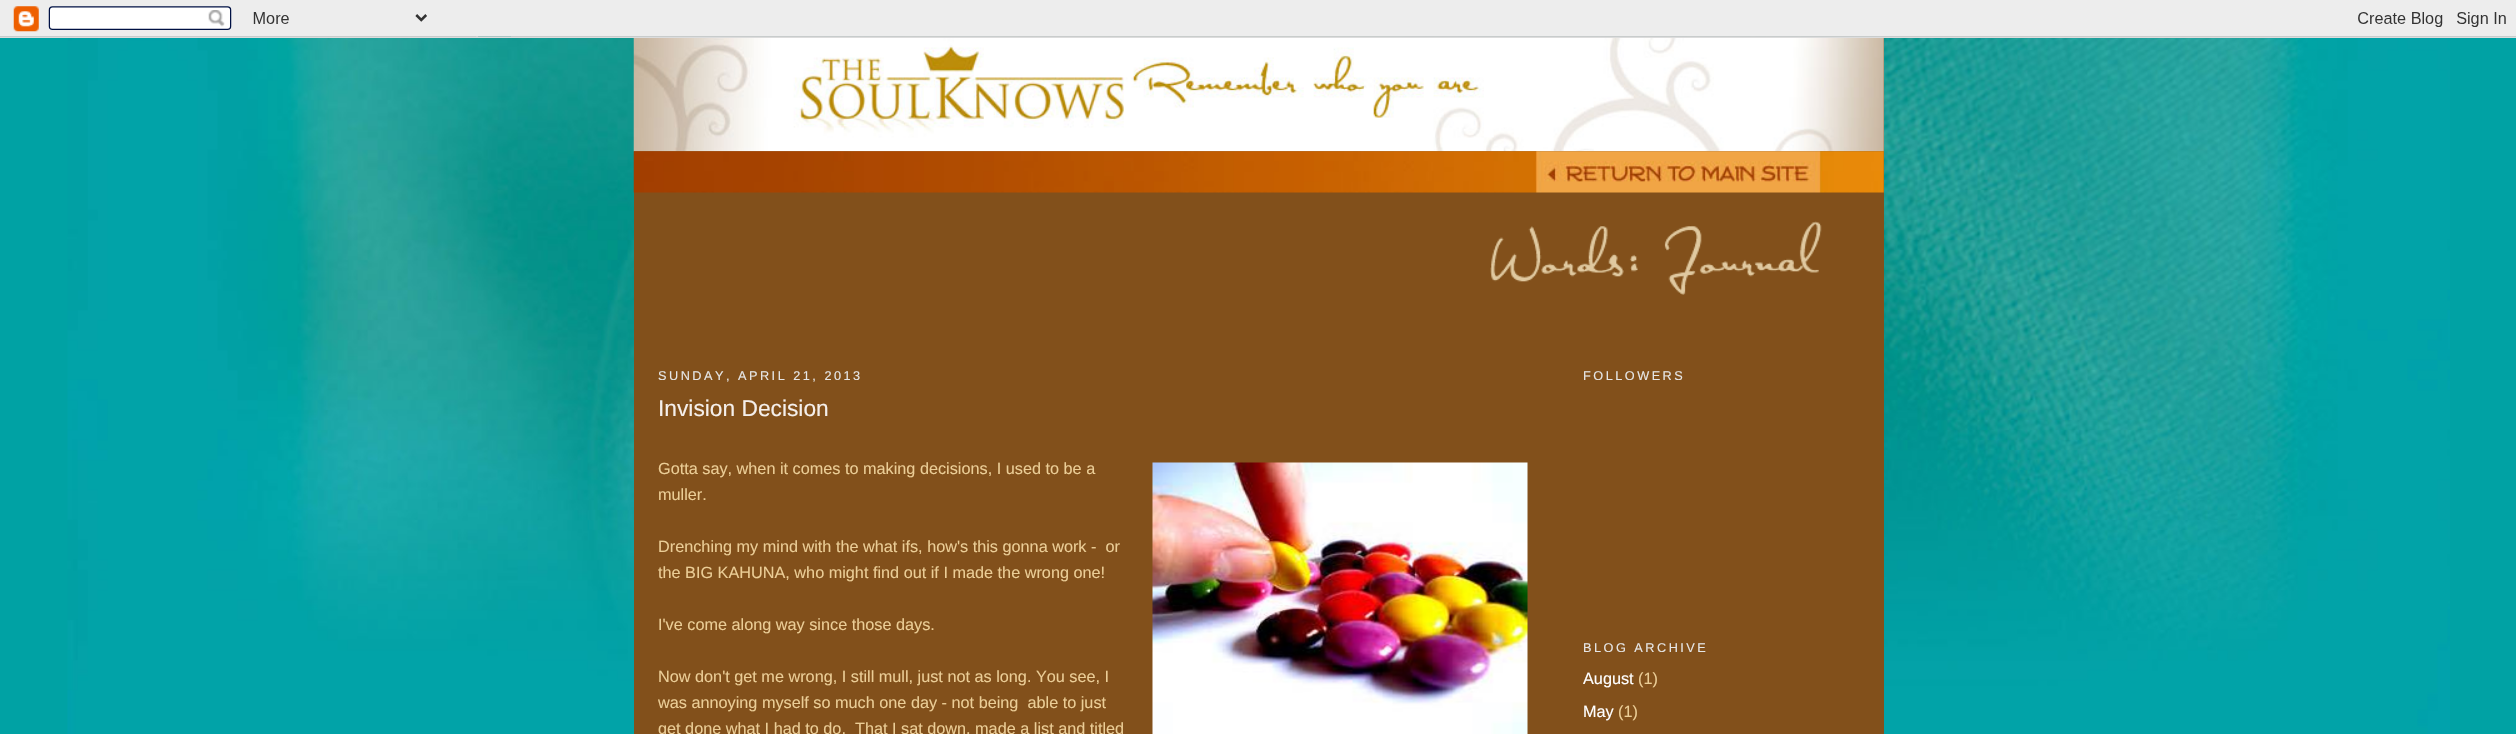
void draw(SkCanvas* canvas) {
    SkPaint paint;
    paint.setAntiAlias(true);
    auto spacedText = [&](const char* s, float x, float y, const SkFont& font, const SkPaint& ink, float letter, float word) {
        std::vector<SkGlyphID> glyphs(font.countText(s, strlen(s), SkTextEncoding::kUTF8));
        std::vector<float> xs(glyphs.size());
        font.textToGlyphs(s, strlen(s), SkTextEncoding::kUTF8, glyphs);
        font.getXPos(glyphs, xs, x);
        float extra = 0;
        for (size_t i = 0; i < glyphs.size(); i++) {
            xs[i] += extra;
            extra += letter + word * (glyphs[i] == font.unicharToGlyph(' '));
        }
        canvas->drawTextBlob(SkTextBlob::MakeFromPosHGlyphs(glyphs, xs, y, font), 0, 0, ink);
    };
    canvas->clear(0xFF00A2A4);
    canvas->drawImageRect(SkImages::DeferredFromEncodedData(SkData::MakeFromFileName("img1.png")), SkRect::MakeXYWH(67, 36, 2383, 698), SkSamplingOptions());
    canvas->drawImageRect(SkImages::DeferredFromEncodedData(SkData::MakeFromFileName("img2.png")), SkRect::MakeXYWH(0, 0, 2516, 38), SkSamplingOptions());
    paint.setColor(0xFF82501B);
    canvas->drawRect(SkRect::MakeXYWH(634, 38, 1250, 696), paint);
    canvas->drawImageRect(SkImages::DeferredFromEncodedData(SkData::MakeFromFileName("img3.png")), SkRect::MakeXYWH(633, 38, 1251, 114), SkSamplingOptions());
    canvas->drawImageRect(SkImages::DeferredFromEncodedData(SkData::MakeFromFileName("img4.png")), SkRect::MakeXYWH(633, 151, 1251, 42), SkSamplingOptions());
    canvas->drawImageRect(SkImages::DeferredFromEncodedData(SkData::MakeFromFileName("img5.png")), SkRect::MakeXYWH(1490, 221, 332, 74), SkSamplingOptions());
    SkFont font1(fontMgr->matchFamilyStyle("Liberation Sans", SkFontStyle::Normal()), 12.7f);
    font1.setSubpixel(true);
    paint.setColor(0xFFE6E6E6);
    spacedText("SUNDAY, APRIL 21, 2013", 658, 380, font1, paint, 2.5f, 0);
    SkFont font2(fontMgr->matchFamilyStyle("Liberation Sans", SkFontStyle::Normal()), 22.75f);
    font2.setSubpixel(true);
    paint.setColor(0xFFF5EFEB);
    canvas->drawString("Invision Decision", 658, 416, font2, paint);
    SkFont font3(fontMgr->matchFamilyStyle("Liberation Sans", SkFontStyle::Normal()), 16.25f);
    font3.setSubpixel(true);
    paint.setColor(0xFFEBCD96);
    canvas->drawString("Gotta say, when it comes to making decisions, I used to be a", 658, 474, font3, paint);
    canvas->drawImageRect(SkImages::DeferredFromEncodedData(SkData::MakeFromFileName("img6.png")), SkRect::MakeXYWH(1152, 462, 376, 272), SkSamplingOptions());
    canvas->drawString("muller.", 658, 500, font3, paint);
    canvas->drawString("Drenching my mind with the what ifs, how's this gonna work -  or", 658, 552, font3, paint);
    canvas->drawString("the BIG KAHUNA, who might find out if I made the wrong one!", 658, 578, font3, paint);
    canvas->drawString("I've come along way since those days.", 658, 630, font3, paint);
    canvas->drawString("Now don't get me wrong, I still mull, just not as long. You see, I", 658, 682, font3, paint);
    canvas->drawString("was annoying myself so much one day - not being  able to just", 658, 708, font3, paint);
    canvas->drawString("get done what I had to do.  That I sat down, made a list and titled", 658, 734, font3, paint);
    paint.setColor(0xFFE6E6E6);
    spacedText("FOLLOWERS", 1583, 380, font1, paint, 2.5f, 0);
    spacedText("BLOG ARCHIVE", 1583, 652, font1, paint, 2.5f, 0);
    paint.setColor(0xFFFFFFFF);
    canvas->drawString("August", 1583, 684, font3, paint);
    paint.setColor(0xFFEBCD96);
    canvas->drawString("(1)", 1638, 684, font3, paint);
    paint.setColor(0xFFFFFFFF);
    canvas->drawString("May", 1583, 717, font3, paint);
    paint.setColor(0xFFEBCD96);
    canvas->drawString("(1)", 1618, 717, font3, paint);
}
